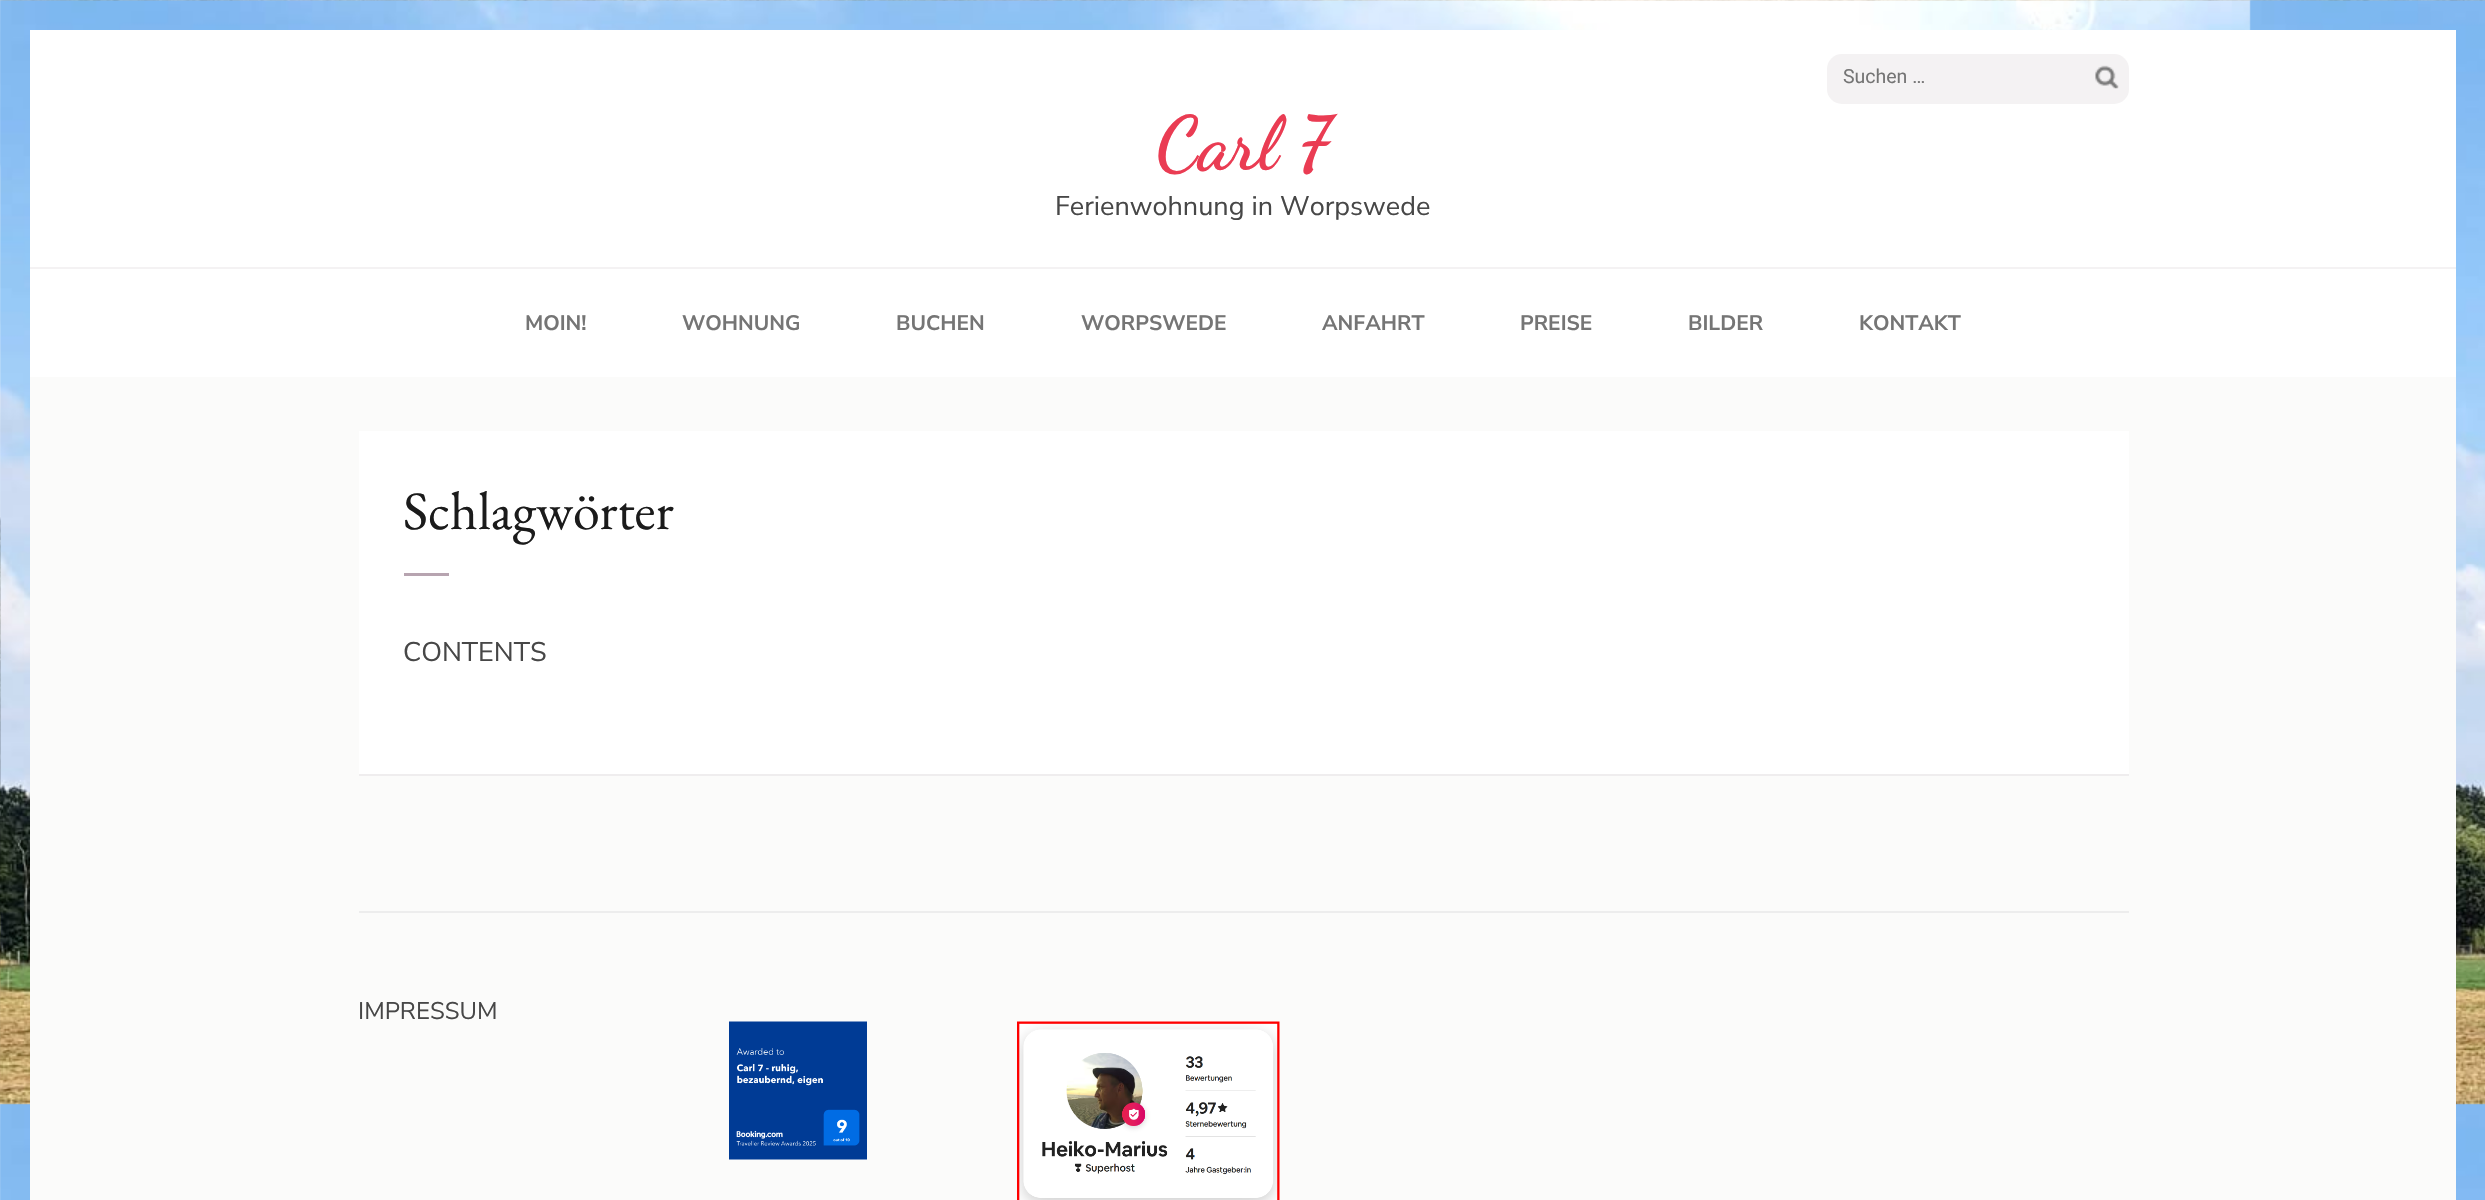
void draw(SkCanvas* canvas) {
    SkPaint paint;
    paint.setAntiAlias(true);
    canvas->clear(0xFFFFFFFF);
    canvas->drawImageRect(SkImages::DeferredFromEncodedData(SkData::MakeFromFileName("img1.png")), SkRect::MakeXYWH(0, 0, 2485, 1200), SkSamplingOptions());
    paint.setColor(0xFFFBFBFA);
    canvas->drawRect(SkRect::MakeXYWH(30, 377, 2426, 823), paint);
    paint.setColor(0xFFFFFFFF);
    canvas->drawRect(SkRect::MakeXYWH(30, 30, 2426, 237), paint);
    paint.setColor(0xFFF4F2F3);
    canvas->drawRoundRect(SkRect::MakeXYWH(1827, 54, 302, 50), 15, 15, paint);
    SkFont font1(fontMgr->matchFamilyStyle("Roboto", SkFontStyle::Normal()), 19.5f);
    font1.setSubpixel(true);
    paint.setColor(0xFF757575);
    canvas->drawString("Suchen …", 1843, 83, font1, paint);
    canvas->drawImageRect(SkImages::DeferredFromEncodedData(SkData::MakeFromFileName("img2.png")), SkRect::MakeXYWH(2095, 65, 24, 24), SkSamplingOptions());
    SkFont font2(fontMgr->matchFamilyStyle("Dancing Script", SkFontStyle::Bold()), 75);
    font2.setSubpixel(true);
    paint.setColor(0xFFEA3C53);
    canvas->drawString("Carl 7", 1156, 168, font2, paint);
    SkFont font3(fontMgr->matchFamilyStyle("Nunito Sans", SkFontStyle::Normal()), 27);
    font3.setSubpixel(true);
    paint.setColor(0xFF474747);
    canvas->drawString("Ferienwohnung in Worpswede", 1055, 215, font3, paint);
    paint.setColor(0xFFFFFFFF);
    canvas->drawRect(SkRect::MakeXYWH(30, 269, 2426, 108), paint);
    paint.setColor(0xFFF4F2F3);
    canvas->drawRect(SkRect::MakeXYWH(30, 267, 2426, 2), paint);
    SkFont font4(fontMgr->matchFamilyStyle("Nunito Sans", SkFontStyle::Bold()), 21);
    font4.setSubpixel(true);
    paint.setColor(0xFF757575);
    canvas->drawString("MOIN!", 525, 330, font4, paint);
    canvas->drawString("WOHNUNG", 682, 330, font4, paint);
    canvas->drawString("BUCHEN", 896, 330, font4, paint);
    canvas->drawString("WORPSWEDE", 1081, 330, font4, paint);
    canvas->drawString("ANFAHRT", 1322, 330, font4, paint);
    canvas->drawString("PREISE", 1520, 330, font4, paint);
    canvas->drawString("BILDER", 1688, 330, font4, paint);
    canvas->drawString("KONTAKT", 1859, 330, font4, paint);
    paint.setColor(0xFFEDEDED);
    canvas->drawRect(SkRect::MakeXYWH(359, 911, 1770, 2), paint);
    paint.setColor(0xFFFFFFFF);
    canvas->drawRect(SkRect::MakeXYWH(359, 431, 1770, 343), paint);
    paint.setColor(0xFFEFEDEE);
    canvas->drawRect(SkRect::MakeXYWH(359, 774, 1770, 2), paint);
    SkFont font5(fontMgr->matchFamilyStyle("EB Garamond", SkFontStyle::Normal()), 54);
    font5.setSubpixel(true);
    paint.setColor(0xFF1B1B1B);
    canvas->drawString("Schlagwörter", 403, 529, font5, paint);
    paint.setColor(0xFFB7A4B0);
    canvas->drawRect(SkRect::MakeXYWH(404, 573, 45, 3), paint);
    paint.setColor(0xFF474747);
    canvas->drawString("CONTENTS", 403, 661, font3, paint);
    SkFont font6(fontMgr->matchFamilyStyle("Nunito Sans", SkFontStyle::Normal()), 24);
    font6.setSubpixel(true);
    canvas->drawString("IMPRESSUM", 358, 1019, font6, paint);
    canvas->drawImageRect(SkImages::DeferredFromEncodedData(SkData::MakeFromFileName("img3.png")), SkRect::MakeXYWH(729, 1021, 138, 139), SkSamplingOptions());
    canvas->drawImageRect(SkImages::DeferredFromEncodedData(SkData::MakeFromFileName("img4.png")), SkRect::MakeXYWH(1017, 1021, 263, 179), SkSamplingOptions());
}
